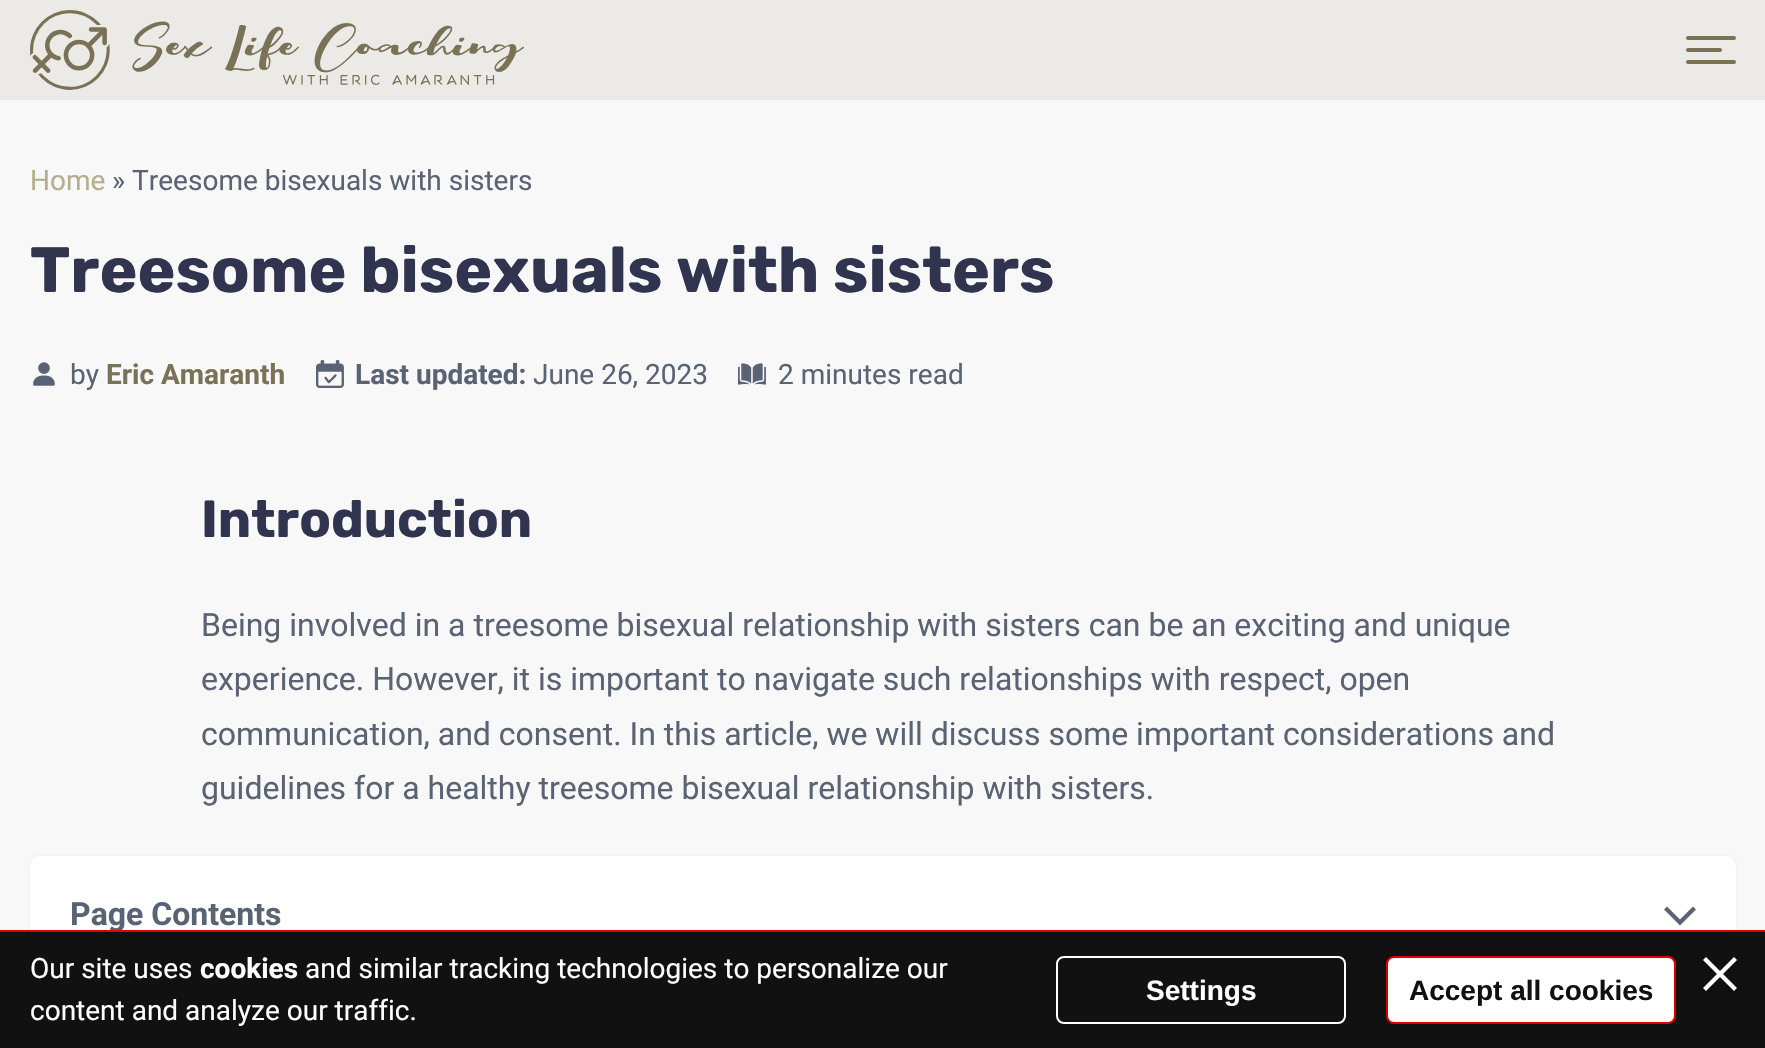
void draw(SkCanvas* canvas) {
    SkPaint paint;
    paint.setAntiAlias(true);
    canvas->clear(0xFFEBEAE6);
    canvas->drawImageRect(SkImages::DeferredFromEncodedData(SkData::MakeFromFileName("img1.png")), SkRect::MakeXYWH(30, 10, 494, 80), SkSamplingOptions());
    paint.setColor(0xFF7A7256);
    canvas->drawRoundRect(SkRect::MakeXYWH(1686, 36, 50, 4), 2, 2, paint);
    canvas->drawRoundRect(SkRect::MakeXYWH(1686, 48, 36, 4), 2, 2, paint);
    canvas->drawRoundRect(SkRect::MakeXYWH(1686, 60, 50, 4), 2, 2, paint);
    paint.setColor(0xFFF8F8F9);
    canvas->drawRect(SkRect::MakeXYWH(0, 100, 1765, 830), paint);
    SkFont font1(fontMgr->matchFamilyStyle("Roboto", SkFontStyle::Normal()), 28);
    font1.setSubpixel(true);
    paint.setColor(0xFFB6AD8C);
    canvas->drawString("Home", 30, 190, font1, paint);
    paint.setColor(0xFF5A6373);
    canvas->drawString("» Treesome bisexuals with sisters", 112, 190, font1, paint);
    SkFont font2(fontMgr->matchFamilyStyle("Rubik", SkFontStyle::Bold()), 64);
    font2.setSubpixel(true);
    paint.setColor(0xFF31344F);
    canvas->drawString("Treesome bisexuals with sisters", 30, 292, font2, paint);
    canvas->drawImageRect(SkImages::DeferredFromEncodedData(SkData::MakeFromFileName("img2.png")), SkRect::MakeXYWH(33, 362, 22, 24), SkSamplingOptions());
    paint.setColor(0xFF5A6373);
    canvas->drawString("by", 70, 384, font1, paint);
    SkFont font3(fontMgr->matchFamilyStyle("Roboto", SkFontStyle::Bold()), 28);
    font3.setSubpixel(true);
    paint.setColor(0xFF7A7256);
    canvas->drawString("Eric Amaranth", 106, 384, font3, paint);
    canvas->drawImageRect(SkImages::DeferredFromEncodedData(SkData::MakeFromFileName("img3.png")), SkRect::MakeXYWH(316, 360, 28, 28), SkSamplingOptions());
    paint.setColor(0xFF5A6373);
    canvas->drawString("Last updated:", 355, 384, font3, paint);
    canvas->drawString("June 26, 2023", 533, 384, font1, paint);
    canvas->drawImageRect(SkImages::DeferredFromEncodedData(SkData::MakeFromFileName("img4.png")), SkRect::MakeXYWH(738, 363, 28, 22), SkSamplingOptions());
    canvas->drawString("2 minutes read", 778, 384, font1, paint);
    SkFont font4(fontMgr->matchFamilyStyle("Rubik", SkFontStyle::Bold()), 52);
    font4.setSubpixel(true);
    paint.setColor(0xFF31344F);
    canvas->drawString("Introduction", 201, 537, font4, paint);
    SkFont font5(fontMgr->matchFamilyStyle("Roboto", SkFontStyle::Normal()), 32);
    font5.setSubpixel(true);
    paint.setColor(0xFF5A6373);
    canvas->drawString("Being involved in a treesome bisexual relationship with sisters can be an exciting and unique", 201, 636, font5, paint);
    canvas->drawString("experience. However, it is important to navigate such relationships with respect, open", 201, 690, font5, paint);
    canvas->drawString("communication, and consent. In this article, we will discuss some important considerations and", 201, 745, font5, paint);
    canvas->drawString("guidelines for a healthy treesome bisexual relationship with sisters.", 201, 799, font5, paint);
    paint.setColor(0x26B6AD8C);
    paint.setMaskFilter(SkMaskFilter::MakeBlur(kNormal_SkBlurStyle, 2));
    canvas->drawRoundRect(SkRect::MakeXYWH(30, 856, 1706, 122), 10, 10, paint);
    paint.setMaskFilter(nullptr);
    paint.setColor(0xFFFFFFFF);
    canvas->drawRoundRect(SkRect::MakeXYWH(30, 856, 1706, 122), 10, 10, paint);
    SkFont font6(fontMgr->matchFamilyStyle("Roboto", SkFontStyle::Bold()), 32);
    font6.setSubpixel(true);
    paint.setColor(0xFF5A6373);
    canvas->drawString("Page Contents", 70, 925, font6, paint);
    canvas->drawPath(SkPathBuilder().moveTo(1667, 906.5f).lineTo(1683, 922.5f).lineTo(1680, 925.5f).lineTo(1664, 909.5f).close().moveTo(1696, 909.5f).lineTo(1680, 925.5f).lineTo(1677, 922.5f).lineTo(1693, 906.5f).close().detach(), paint);
    paint.setColor(0xFF111111);
    canvas->drawRect(SkRect::MakeXYWH(0, 932, 1765, 116), paint);
    paint.setColor(0xFFE00000);
    canvas->drawRect(SkRect::MakeXYWH(0, 930, 1765, 2), paint);
    paint.setColor(0xFFFFFFFF);
    canvas->drawString("Our site uses", 30, 978, font1, paint);
    canvas->drawString("cookies", 200, 978, font3, paint);
    canvas->drawString("and similar tracking technologies to personalize our", 305, 978, font1, paint);
    canvas->drawString("content and analyze our traffic.", 30, 1020, font1, paint);
    paint.setStyle(SkPaint::kStroke_Style);
    paint.setStrokeWidth(2);
    canvas->drawRoundRect(SkRect::MakeXYWH(1057, 957, 288, 66), 7, 7, paint);
    SkFont font7(fontMgr->matchFamilyStyle("Liberation Sans", SkFontStyle::Bold()), 28);
    font7.setSubpixel(true);
    paint.setStyle(SkPaint::kFill_Style);
    canvas->drawString("Settings", 1146, 1000, font7, paint);
    canvas->drawRoundRect(SkRect::MakeXYWH(1387, 957, 288, 66), 7, 7, paint);
    paint.setStyle(SkPaint::kStroke_Style);
    paint.setColor(0xFFE00000);
    canvas->drawRoundRect(SkRect::MakeXYWH(1387, 957, 288, 66), 7, 7, paint);
    paint.setStyle(SkPaint::kFill_Style);
    paint.setColor(0xFF111111);
    canvas->drawString("Accept all cookies", 1409, 1000, font7, paint);
    paint.setColor(0xFFFFFFFF);
    canvas->drawPath(SkPathBuilder().moveTo(1734, 957).lineTo(1737, 960).lineTo(1706, 991).lineTo(1703, 988).close().detach(), paint);
    canvas->drawPath(SkPathBuilder().moveTo(1703, 960).lineTo(1706, 957).lineTo(1737, 988).lineTo(1734, 991).close().detach(), paint);
}
